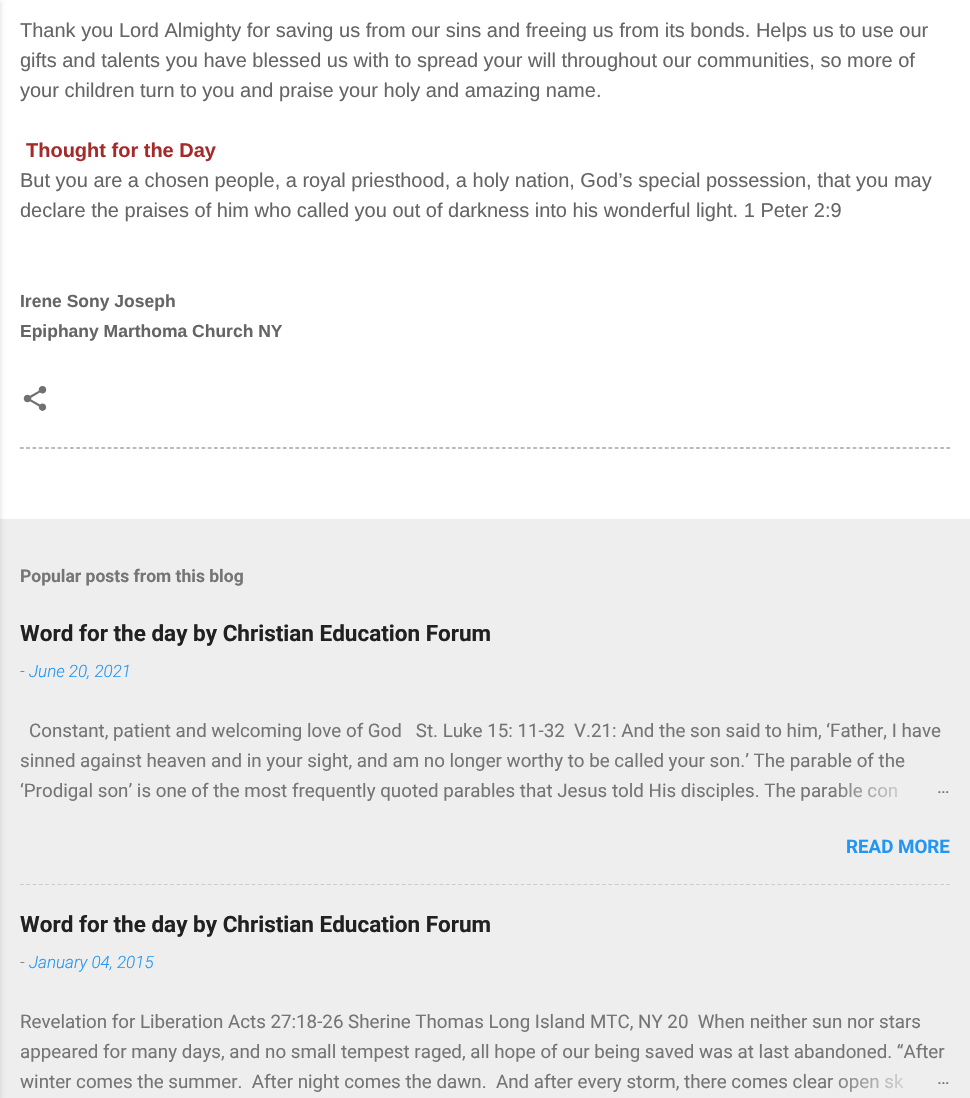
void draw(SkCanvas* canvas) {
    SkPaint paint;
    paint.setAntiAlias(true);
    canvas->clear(0xFFEEEEEE);
    paint.setColor(0xFFFFFFFF);
    canvas->drawRect(SkRect::MakeXYWH(0, 0, 970, 519), paint);
    paint.setColor(0x1A000000);
    paint.setMaskFilter(SkMaskFilter::MakeBlur(kNormal_SkBlurStyle, 2));
    canvas->drawRect(SkRect::MakeXYWH(-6, 1, 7, 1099), paint);
    paint.setMaskFilter(nullptr);
    SkFont font1(fontMgr->matchFamilyStyle("Liberation Sans", SkFontStyle::Normal()), 20);
    font1.setSubpixel(true);
    paint.setColor(0xFF656565);
    canvas->drawString("Thank you Lord Almighty for saving us from our sins and freeing us from its bonds. Helps us to use our", 20, 37, font1, paint);
    canvas->drawString("gifts and talents you have blessed us with to spread your will throughout our communities, so more of", 20, 67, font1, paint);
    canvas->drawString("your children turn to you and praise your holy and amazing name.", 20, 97, font1, paint);
    SkFont font2(fontMgr->matchFamilyStyle("Liberation Sans", SkFontStyle::Bold()), 20);
    font2.setSubpixel(true);
    paint.setColor(0xFFA52A2A);
    canvas->drawString("Thought for the Day", 26, 157, font2, paint);
    paint.setColor(0xFF656565);
    canvas->drawString("But you are a chosen people, a royal priesthood, a holy nation, God’s special possession, that you may", 20, 187, font1, paint);
    canvas->drawString("declare the praises of him who called you out of darkness into his wonderful light. 1 Peter 2:9", 20, 217, font1, paint);
    SkFont font3(fontMgr->matchFamilyStyle("Liberation Sans", SkFontStyle::Bold()), 17.5f);
    font3.setSubpixel(true);
    canvas->drawString("Irene Sony Joseph", 20, 307, font3, paint);
    canvas->drawString("Epiphany Marthoma Church NY", 20, 337, font3, paint);
    canvas->drawImageRect(SkImages::DeferredFromEncodedData(SkData::MakeFromFileName("img1.png")), SkRect::MakeXYWH(23, 386, 24, 25), SkSamplingOptions());
    paint.setStyle(SkPaint::kStroke_Style);
    paint.setStrokeWidth(1.2f);
    paint.setColor(0xFF757575);
    paint.setPathEffect(SkDashPathEffect::Make({{3.75f, 2.51f}}, 0));
    canvas->drawPath(SkPathBuilder().moveTo(20, 448).lineTo(950, 448).detach(), paint);
    paint.setPathEffect(nullptr);
    SkFont font4(fontMgr->matchFamilyStyle("Roboto", SkFontStyle::Bold()), 17.5f);
    font4.setSubpixel(true);
    paint.setStyle(SkPaint::kFill_Style);
    canvas->drawString("Popular posts from this blog", 20, 582, font4, paint);
    SkFont font5(fontMgr->matchFamilyStyle("Roboto", SkFontStyle::Bold()), 22.5f);
    font5.setSubpixel(true);
    paint.setColor(0xFF212121);
    canvas->drawString("Word for the day by Christian Education Forum", 20, 641, font5, paint);
    SkFont font6(fontMgr->matchFamilyStyle("Roboto", SkFontStyle(300, SkFontStyle::kNormal_Width, SkFontStyle::kItalic_Slant)), 17);
    font6.setSubpixel(true);
    paint.setColor(0xFF6D6D6D);
    canvas->drawString("-", 20, 677, font6, paint);
    paint.setColor(0xFF2196F3);
    canvas->drawString("June 20, 2021", 29, 677, font6, paint);
    SkFont font7(fontMgr->matchFamilyStyle("Roboto", SkFontStyle::Normal()), 18.75f);
    font7.setSubpixel(true);
    paint.setColor(0xFF757575);
    canvas->drawString("Constant, patient and welcoming love of God   St. Luke 15: 11-32  V.21: And the son said to him, ‘Father, I have", 29, 737, font7, paint);
    canvas->drawString("sinned against heaven and in your sight, and am no longer worthy to be called your son.’ The parable of the", 20, 767, font7, paint);
    canvas->drawString("‘Prodigal son’ is one of the most frequently quoted parables that Jesus told His disciples. The parable con", 20, 797, font7, paint);
    {
        const SkColor colors[] = {0xFFEEEEEE, 0xFFEEEEEE, 0x00EEEEEE};
        const float stops[] = {0, 0.2f, 1};
        const SkPoint ends[] = {{950, 791}, {830, 791}};
        paint.setShader(SkGradientShader::MakeLinear(ends, colors, stops, 3, SkTileMode::kClamp));
        paint.setAlpha(255);
    }
    canvas->drawRect(SkRect::MakeXYWH(832, 783, 65, 15), paint);
    paint.setShader(nullptr);
    paint.setColor(0xFF757575);
    canvas->drawString("…", 937, 793, font7, paint);
    SkFont font8(fontMgr->matchFamilyStyle("Roboto", SkFontStyle::Bold()), 18.75f);
    font8.setSubpixel(true);
    paint.setColor(0xFF2196F3);
    canvas->drawString("READ MORE", 846, 853, font8, paint);
    paint.setStyle(SkPaint::kStroke_Style);
    paint.setColor(0xFFCCCCCC);
    paint.setPathEffect(SkDashPathEffect::Make({{3.75f, 2.51f}}, 0));
    canvas->drawPath(SkPathBuilder().moveTo(20, 884.5f).lineTo(950, 884.5f).detach(), paint);
    paint.setPathEffect(nullptr);
    paint.setStyle(SkPaint::kFill_Style);
    paint.setColor(0xFF212121);
    canvas->drawString("Word for the day by Christian Education Forum", 20, 932, font5, paint);
    paint.setColor(0xFF6D6D6D);
    canvas->drawString("-", 20, 968, font6, paint);
    paint.setColor(0xFF2196F3);
    canvas->drawString("January 04, 2015", 29, 968, font6, paint);
    paint.setColor(0xFF757575);
    canvas->drawString("Revelation for Liberation Acts 27:18-26 Sherine Thomas Long Island MTC, NY 20  When neither sun nor stars", 20, 1028, font7, paint);
    canvas->drawString("appeared for many days, and no small tempest raged, all hope of our being saved was at last abandoned. “After", 20, 1058, font7, paint);
    canvas->drawString("winter comes the summer.  After night comes the dawn.  And after every storm, there comes clear open sk", 20, 1088, font7, paint);
    {
        const SkColor colors[] = {0xFFEEEEEE, 0xFFEEEEEE, 0x00EEEEEE};
        const float stops[] = {0, 0.2f, 1};
        const SkPoint ends[] = {{950, 1083}, {830, 1083}};
        paint.setShader(SkGradientShader::MakeLinear(ends, colors, stops, 3, SkTileMode::kClamp));
        paint.setAlpha(255);
    }
    canvas->drawRect(SkRect::MakeXYWH(832, 1073, 72, 19), paint);
    paint.setShader(nullptr);
    paint.setColor(0xFF757575);
    canvas->drawString("…", 937, 1084, font7, paint);
}
